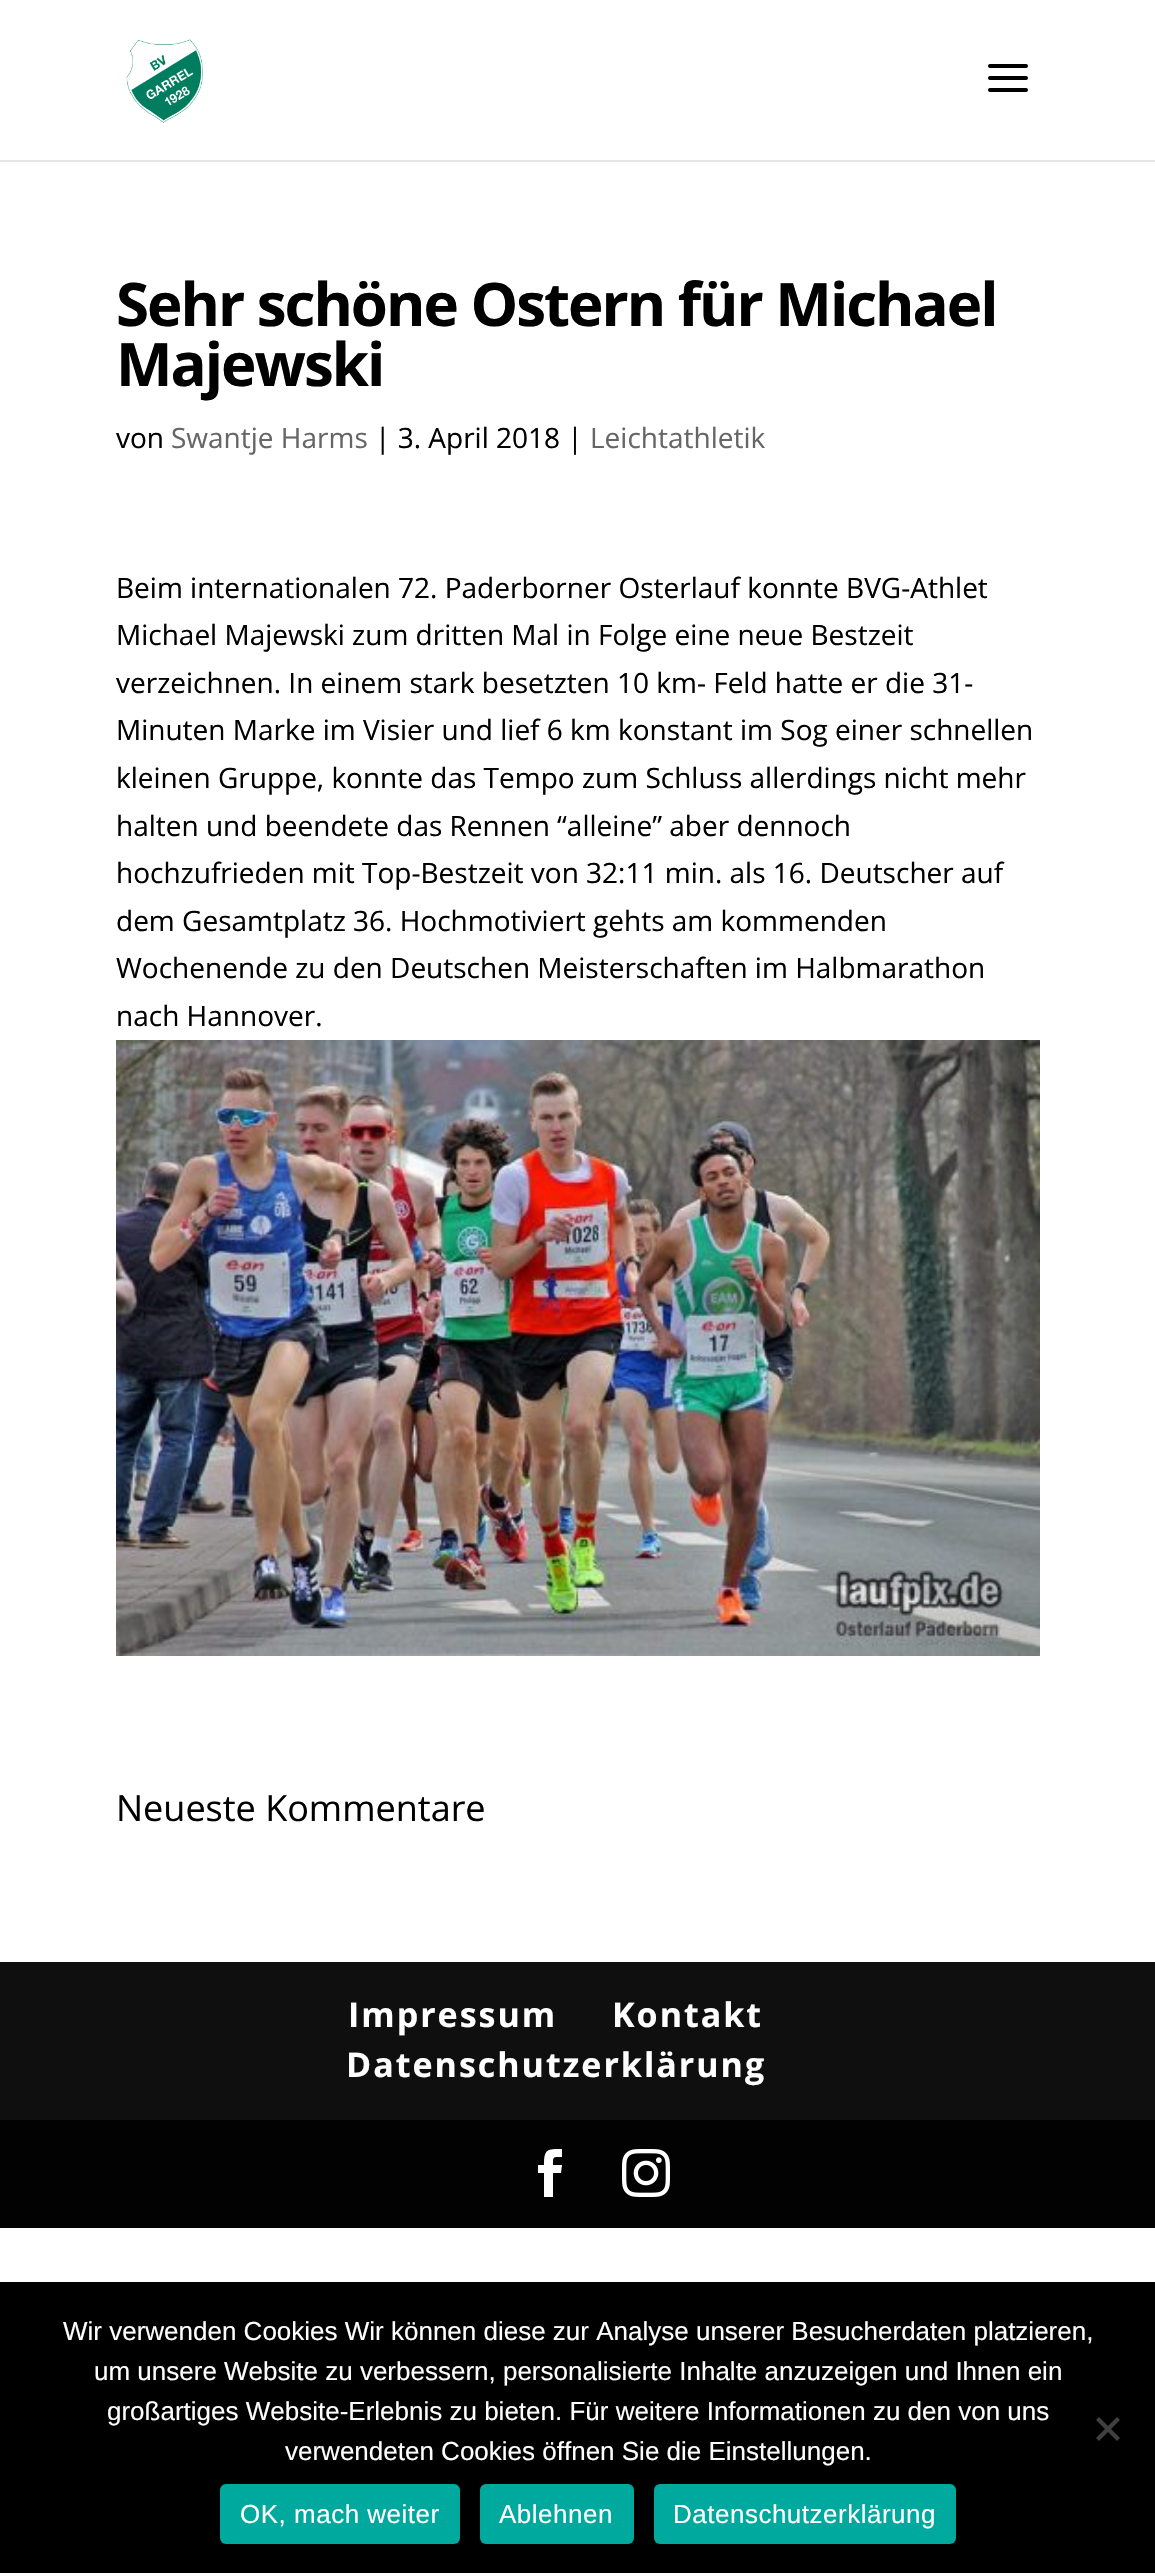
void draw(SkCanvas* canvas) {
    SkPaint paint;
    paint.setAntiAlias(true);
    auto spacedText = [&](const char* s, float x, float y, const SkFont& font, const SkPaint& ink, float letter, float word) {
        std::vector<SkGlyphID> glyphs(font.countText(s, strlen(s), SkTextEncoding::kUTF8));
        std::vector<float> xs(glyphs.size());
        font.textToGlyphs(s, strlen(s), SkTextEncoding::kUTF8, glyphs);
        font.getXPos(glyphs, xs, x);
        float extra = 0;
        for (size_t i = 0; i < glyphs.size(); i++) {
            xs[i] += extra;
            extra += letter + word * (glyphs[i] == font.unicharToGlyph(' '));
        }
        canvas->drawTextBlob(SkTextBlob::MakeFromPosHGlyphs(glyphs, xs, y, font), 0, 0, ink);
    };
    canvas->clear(0xFFFFFFFF);
    paint.setColor(0xFFE6E6E6);
    canvas->drawRect(SkRect::MakeXYWH(0, 160, 1155, 2), paint);
    canvas->drawImageRect(SkImages::DeferredFromEncodedData(SkData::MakeFromFileName("img1.png")), SkRect::MakeXYWH(126, 39, 77, 84), SkSamplingOptions());
    canvas->drawImageRect(SkImages::DeferredFromEncodedData(SkData::MakeFromFileName("img2.png")), SkRect::MakeXYWH(988, 64, 40, 28), SkSamplingOptions());
    SkFont font1(fontMgr->matchFamilyStyle("Open Sans", SkFontStyle::Bold()), 60);
    font1.setSubpixel(true);
    paint.setColor(0xFF000000);
    spacedText("Sehr schöne Ostern für Michael", 116, 326, font1, paint, -2, 0);
    spacedText("Majewski", 116, 386, font1, paint, -2, 0);
    SkFont font2(fontMgr->matchFamilyStyle("Open Sans", SkFontStyle::Normal()), 28);
    font2.setSubpixel(true);
    canvas->drawString("von", 116, 448, font2, paint);
    paint.setColor(0xFF666666);
    canvas->drawString("Swantje Harms", 171, 448, font2, paint);
    paint.setColor(0xFF000000);
    canvas->drawString("| 3. April 2018 |", 375, 448, font2, paint);
    paint.setColor(0xFF666666);
    canvas->drawString("Leichtathletik", 590, 448, font2, paint);
    paint.setColor(0xFF000000);
    canvas->drawString("Beim internationalen 72. Paderborner Osterlauf konnte BVG-Athlet", 116, 598, font2, paint);
    canvas->drawString("Michael Majewski zum dritten Mal in Folge eine neue Bestzeit", 116, 645, font2, paint);
    canvas->drawString("verzeichnen. In einem stark besetzten 10 km- Feld hatte er die 31-", 116, 693, font2, paint);
    canvas->drawString("Minuten Marke im Visier und lief 6 km konstant im Sog einer schnellen", 116, 740, font2, paint);
    canvas->drawString("kleinen Gruppe, konnte das Tempo zum Schluss allerdings nicht mehr", 116, 788, font2, paint);
    canvas->drawString("halten und beendete das Rennen “alleine” aber dennoch", 116, 836, font2, paint);
    canvas->drawString("hochzufrieden mit Top-Bestzeit von 32:11 min. als 16. Deutscher auf", 116, 883, font2, paint);
    canvas->drawString("dem Gesamtplatz 36. Hochmotiviert gehts am kommenden", 116, 931, font2, paint);
    canvas->drawString("Wochenende zu den Deutschen Meisterschaften im Halbmarathon", 116, 978, font2, paint);
    canvas->drawString("nach Hannover.", 116, 1026, font2, paint);
    canvas->drawImageRect(SkImages::DeferredFromEncodedData(SkData::MakeFromFileName("img3.png")), SkRect::MakeXYWH(116, 1040, 924, 616), SkSamplingOptions());
    SkFont font3(fontMgr->matchFamilyStyle("Open Sans", SkFontStyle::Normal()), 36);
    font3.setSubpixel(true);
    canvas->drawString("Neueste Kommentare", 116, 1821, font3, paint);
    paint.setColor(0xFF020202);
    canvas->drawRect(SkRect::MakeXYWH(0, 2120, 1155, 108), paint);
    paint.setColor(0xFF0F0F0F);
    canvas->drawRect(SkRect::MakeXYWH(0, 1962, 1155, 158), paint);
    SkFont font4(fontMgr->matchFamilyStyle("Open Sans", SkFontStyle::Bold()), 34);
    font4.setSubpixel(true);
    paint.setColor(0xFFFFFFFF);
    spacedText("Impressum", 348, 2027, font4, paint, 2, 0);
    spacedText("Kontakt", 612, 2027, font4, paint, 2, 0);
    spacedText("Datenschutzerklärung", 346, 2077, font4, paint, 2, 0);
    canvas->drawPath(SkPathBuilder().moveTo(544, 2197).lineTo(553, 2197).lineTo(553, 2173).lineTo(561, 2173).lineTo(562, 2165).lineTo(553, 2165).cubicTo(553, 2156, 553, 2157, 562, 2157).lineTo(562, 2149).cubicTo(547, 2149, 544, 2149, 544, 2165).lineTo(538, 2165).lineTo(538, 2173).lineTo(544, 2173).close().detach(), paint);
    canvas->drawImageRect(SkImages::DeferredFromEncodedData(SkData::MakeFromFileName("img4.png")), SkRect::MakeXYWH(622, 2149, 48, 48), SkSamplingOptions());
    paint.setColor(0xFF000000);
    canvas->drawRect(SkRect::MakeXYWH(0, 2282, 1155, 291), paint);
    SkFont font5(fontMgr->matchFamilyStyle("Liberation Sans", SkFontStyle::Normal()), 26);
    font5.setSubpixel(true);
    paint.setColor(0xFFFFFFFF);
    canvas->drawString("Wir verwenden Cookies Wir können diese zur Analyse unserer Besucherdaten platzieren,", 63, 2340, font5, paint);
    canvas->drawString("um unsere Website zu verbessern, personalisierte Inhalte anzuzeigen und Ihnen ein", 94, 2380, font5, paint);
    canvas->drawString("großartiges Website-Erlebnis zu bieten. Für weitere Informationen zu den von uns", 107, 2420, font5, paint);
    canvas->drawString("verwendeten Cookies öffnen Sie die Einstellungen.", 285, 2460, font5, paint);
    paint.setColor(0xFF404040);
    canvas->drawPath(SkPathBuilder().moveTo(1117, 2417).lineTo(1120, 2420).lineTo(1099, 2441).lineTo(1096, 2438).close().detach(), paint);
    canvas->drawPath(SkPathBuilder().moveTo(1096, 2420).lineTo(1099, 2417).lineTo(1120, 2438).lineTo(1117, 2441).close().detach(), paint);
    paint.setColor(0xFF00A99D);
    canvas->drawRoundRect(SkRect::MakeXYWH(220, 2484, 240, 60), 6, 6, paint);
    paint.setColor(0xFFFFFFFF);
    spacedText("OK, mach weiter", 240, 2523, font5, paint, 0.5f, 0);
    paint.setColor(0xFF00A99D);
    canvas->drawRoundRect(SkRect::MakeXYWH(480, 2484, 154, 60), 6, 6, paint);
    paint.setColor(0xFFFFFFFF);
    spacedText("Ablehnen", 499, 2523, font5, paint, 0.5f, 0);
    paint.setColor(0xFF00A99D);
    canvas->drawRoundRect(SkRect::MakeXYWH(654, 2484, 302, 60), 6, 6, paint);
    paint.setColor(0xFFFFFFFF);
    spacedText("Datenschutzerklärung", 673, 2523, font5, paint, 0.5f, 0);
}
